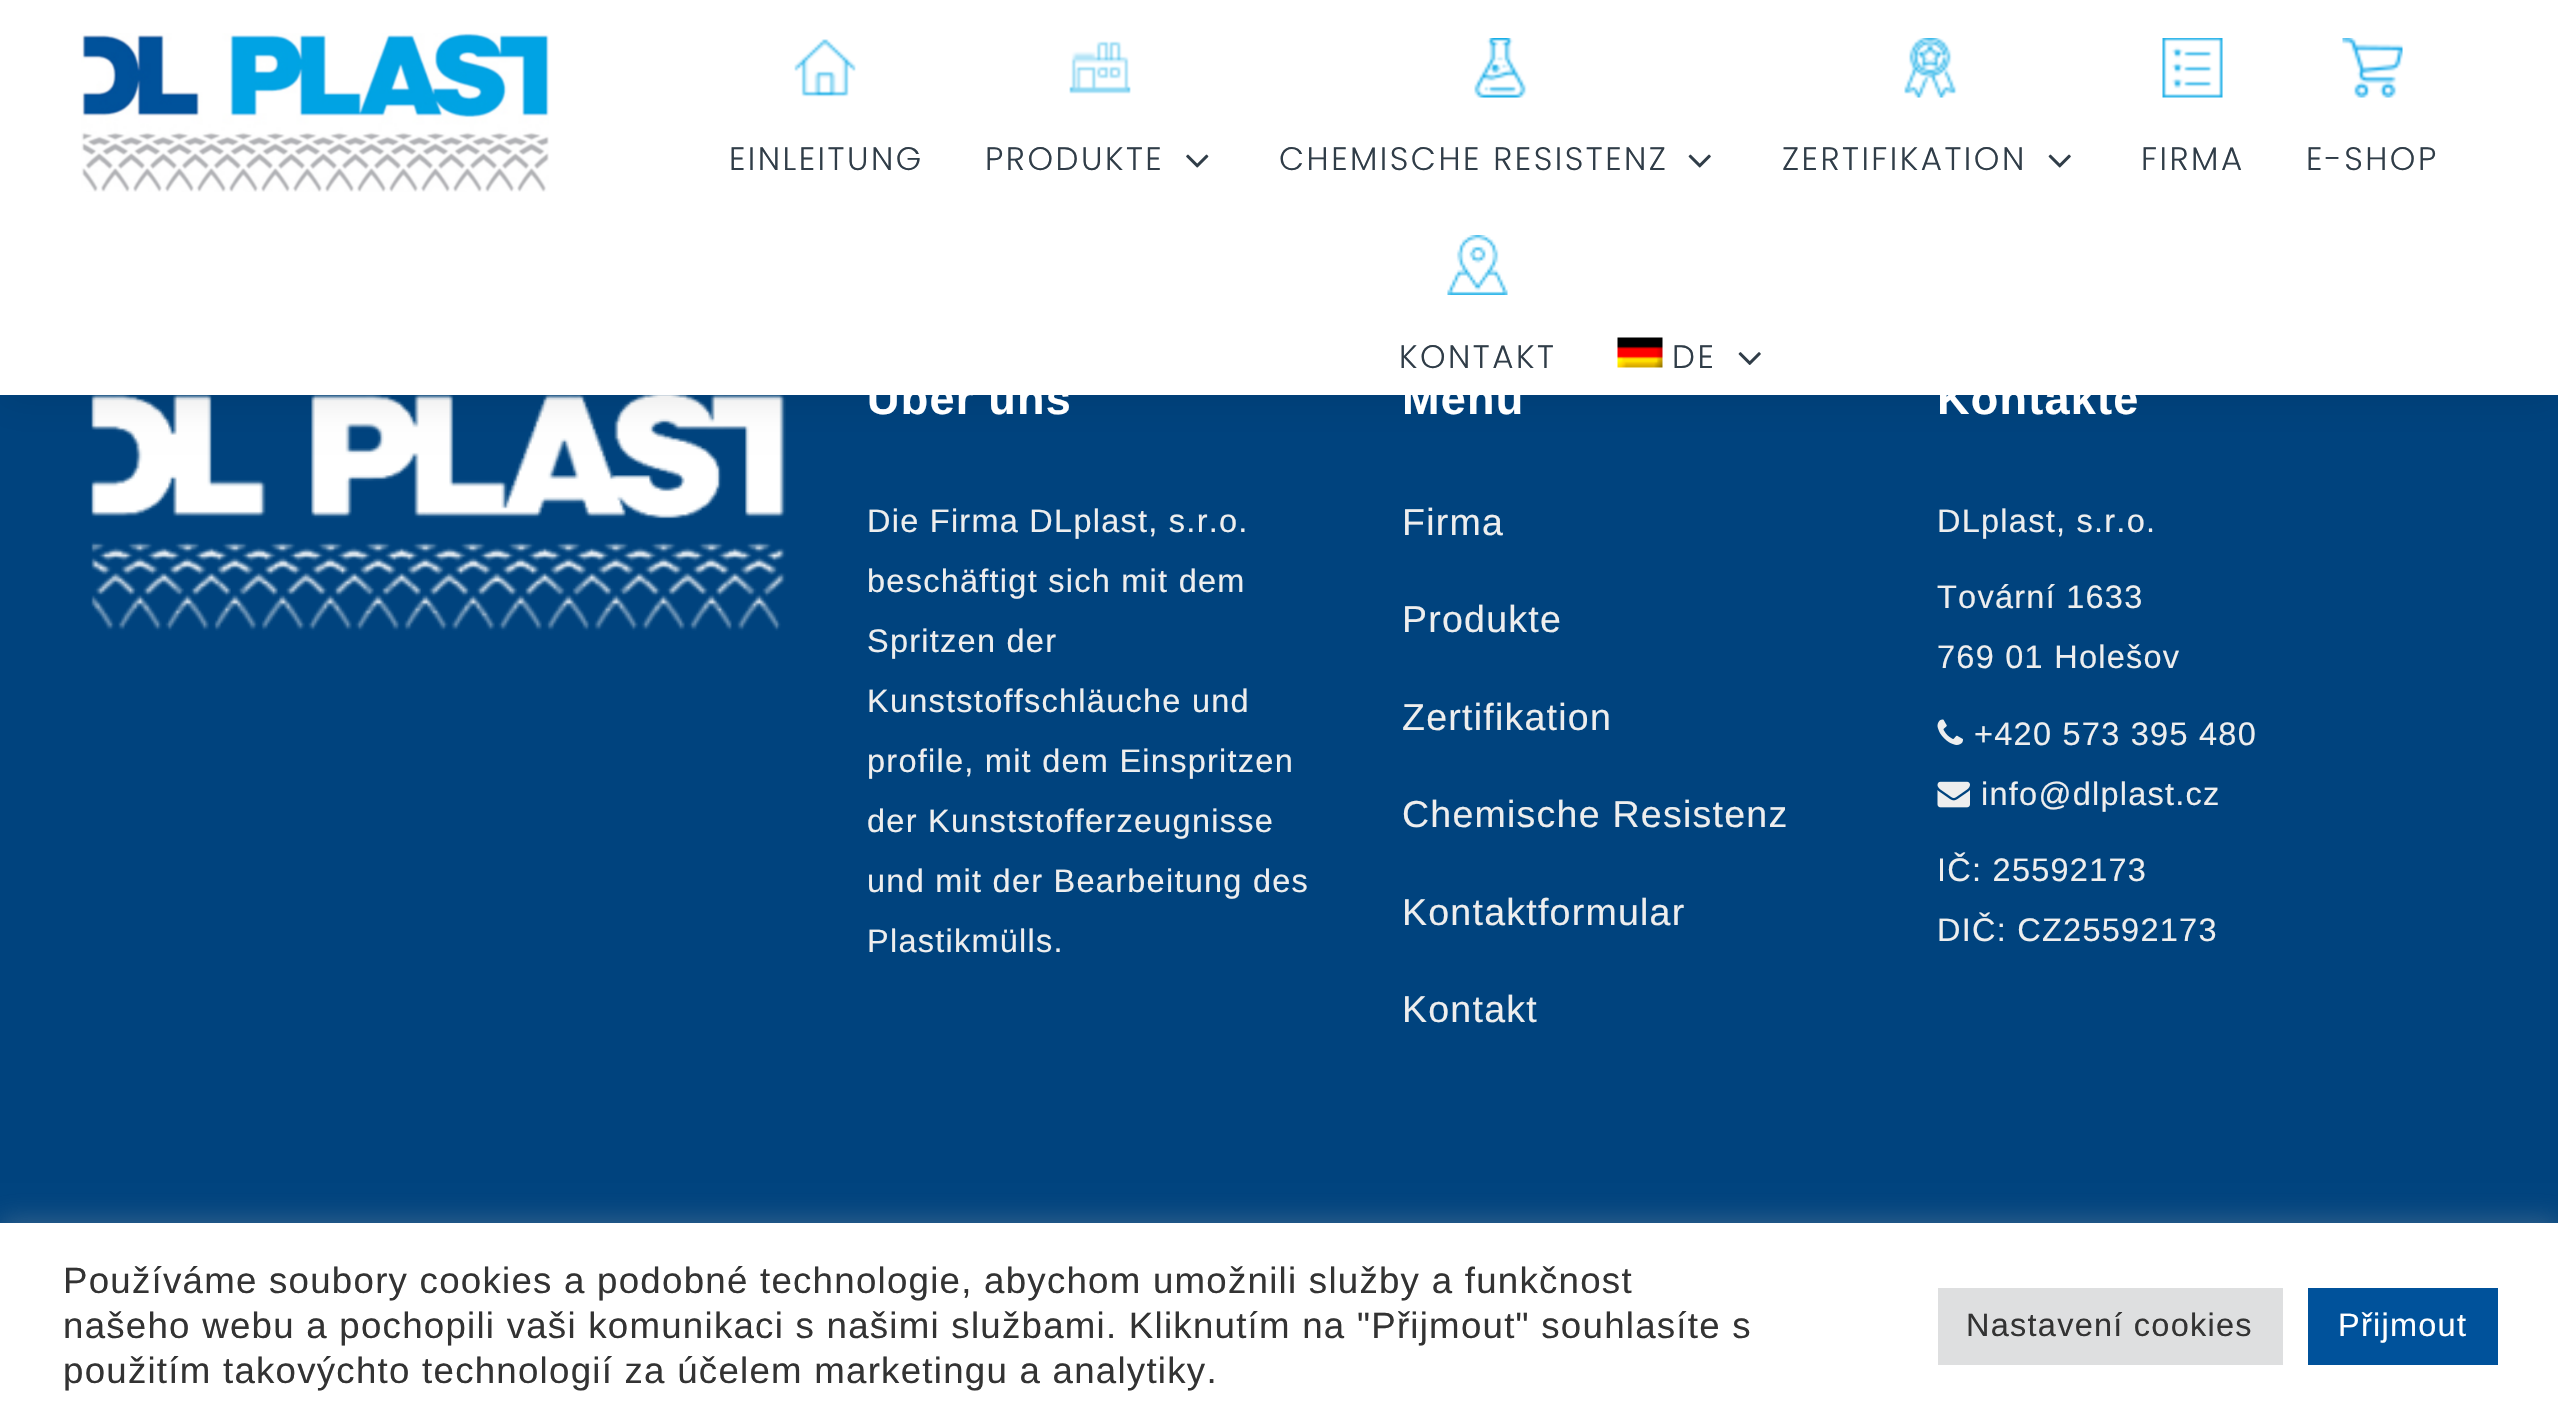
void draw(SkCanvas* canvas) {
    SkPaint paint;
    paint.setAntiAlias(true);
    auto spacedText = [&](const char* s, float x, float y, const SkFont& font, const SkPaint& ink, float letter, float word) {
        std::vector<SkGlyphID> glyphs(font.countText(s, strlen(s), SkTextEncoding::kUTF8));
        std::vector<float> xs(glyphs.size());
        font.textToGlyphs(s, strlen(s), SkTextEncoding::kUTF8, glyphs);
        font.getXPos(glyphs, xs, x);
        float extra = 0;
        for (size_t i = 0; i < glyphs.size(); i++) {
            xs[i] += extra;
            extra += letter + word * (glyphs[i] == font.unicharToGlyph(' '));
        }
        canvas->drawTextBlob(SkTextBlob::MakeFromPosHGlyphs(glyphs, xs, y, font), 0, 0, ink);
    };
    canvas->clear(0xFF00437E);
    canvas->drawImageRect(SkImages::DeferredFromEncodedData(SkData::MakeFromFileName("img13.png")), SkRect::MakeXYWH(91, 395, 695, 236), SkSamplingOptions());
    paint.setColor(0x1A000000);
    paint.setMaskFilter(SkMaskFilter::MakeBlur(kNormal_SkBlurStyle, 19));
    canvas->drawRect(SkRect::MakeXYWH(0, 3, 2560, 395), paint);
    paint.setMaskFilter(nullptr);
    paint.setColor(0xFFFFFFFF);
    canvas->drawRect(SkRect::MakeXYWH(0, 0, 2558, 395), paint);
    canvas->drawImageRect(SkImages::DeferredFromEncodedData(SkData::MakeFromFileName("img1.png")), SkRect::MakeXYWH(81, 33, 468, 159), SkSamplingOptions());
    canvas->drawImageRect(SkImages::DeferredFromEncodedData(SkData::MakeFromFileName("img2.png")), SkRect::MakeXYWH(794, 39, 62, 58), SkSamplingOptions());
    SkFont font1(fontMgr->matchFamilyStyle("Poppins", SkFontStyle(300, SkFontStyle::kNormal_Width, SkFontStyle::kUpright_Slant)), 32.5f);
    font1.setSubpixel(true);
    paint.setColor(0xFF303D48);
    spacedText("EINLEITUNG", 729, 170, font1, paint, 2.5f, 0);
    canvas->drawImageRect(SkImages::DeferredFromEncodedData(SkData::MakeFromFileName("img3.png")), SkRect::MakeXYWH(1069, 41, 62, 53), SkSamplingOptions());
    spacedText("PRODUKTE", 985, 170, font1, paint, 2.5f, 0);
    canvas->drawImageRect(SkImages::DeferredFromEncodedData(SkData::MakeFromFileName("img4.png")), SkRect::MakeXYWH(1186, 154, 23, 14), SkSamplingOptions());
    canvas->drawImageRect(SkImages::DeferredFromEncodedData(SkData::MakeFromFileName("img5.png")), SkRect::MakeXYWH(1474, 38, 53, 60), SkSamplingOptions());
    spacedText("CHEMISCHE RESISTENZ", 1279, 170, font1, paint, 2.5f, 0);
    canvas->drawImageRect(SkImages::DeferredFromEncodedData(SkData::MakeFromFileName("img6.png")), SkRect::MakeXYWH(1688, 154, 23, 14), SkSamplingOptions());
    canvas->drawImageRect(SkImages::DeferredFromEncodedData(SkData::MakeFromFileName("img7.png")), SkRect::MakeXYWH(1904, 38, 53, 60), SkSamplingOptions());
    spacedText("ZERTIFIKATION", 1782, 170, font1, paint, 2.5f, 0);
    canvas->drawImageRect(SkImages::DeferredFromEncodedData(SkData::MakeFromFileName("img6.png")), SkRect::MakeXYWH(2048, 154, 23, 14), SkSamplingOptions());
    canvas->drawImageRect(SkImages::DeferredFromEncodedData(SkData::MakeFromFileName("img8.png")), SkRect::MakeXYWH(2162, 38, 61, 60), SkSamplingOptions());
    spacedText("FIRMA", 2141, 170, font1, paint, 2.5f, 0);
    canvas->drawImageRect(SkImages::DeferredFromEncodedData(SkData::MakeFromFileName("img9.png")), SkRect::MakeXYWH(2342, 38, 61, 60), SkSamplingOptions());
    spacedText("E-SHOP", 2306, 170, font1, paint, 2.5f, 0);
    canvas->drawImageRect(SkImages::DeferredFromEncodedData(SkData::MakeFromFileName("img10.png")), SkRect::MakeXYWH(1447, 235, 61, 60), SkSamplingOptions());
    spacedText("KONTAKT", 1399, 368, font1, paint, 2.5f, 0);
    canvas->drawImageRect(SkImages::DeferredFromEncodedData(SkData::MakeFromFileName("img11.png")), SkRect::MakeXYWH(1617, 337, 46, 31), SkSamplingOptions());
    spacedText("DE", 1672, 368, font1, paint, 2.5f, 0);
    canvas->drawImageRect(SkImages::DeferredFromEncodedData(SkData::MakeFromFileName("img12.png")), SkRect::MakeXYWH(1738, 352, 23, 13), SkSamplingOptions());
    SkFont font2(fontMgr->matchFamilyStyle("Liberation Sans", SkFontStyle::Bold()), 45);
    font2.setSubpixel(true);
    paint.setColor(0xFFFFFFFF);
    spacedText("Über uns", 867, 414, font2, paint, 1.25f, 0);
    SkFont font3(fontMgr->matchFamilyStyle("Liberation Sans", SkFontStyle::Normal()), 32.5f);
    font3.setSubpixel(true);
    paint.setColor(0xFFEEEEEE);
    spacedText("Die Firma DLplast, s.r.o.", 867, 532, font3, paint, 1.25f, 0);
    spacedText("beschäftigt sich mit dem", 867, 592, font3, paint, 1.25f, 0);
    spacedText("Spritzen der", 867, 652, font3, paint, 1.25f, 0);
    spacedText("Kunststoffschläuche und", 867, 712, font3, paint, 1.25f, 0);
    spacedText("profile, mit dem Einspritzen", 867, 772, font3, paint, 1.25f, 0);
    spacedText("der Kunststofferzeugnisse", 867, 832, font3, paint, 1.25f, 0);
    spacedText("und mit der Bearbeitung des", 867, 892, font3, paint, 1.25f, 0);
    spacedText("Plastikmülls.", 867, 952, font3, paint, 1.25f, 0);
    paint.setColor(0xFFFFFFFF);
    spacedText("Menu", 1402, 414, font2, paint, 1.25f, 0);
    SkFont font4(fontMgr->matchFamilyStyle("Liberation Sans", SkFontStyle::Normal()), 37.5f);
    font4.setSubpixel(true);
    paint.setColor(0xFFEEEEEE);
    spacedText("Firma", 1402, 535, font4, paint, 1.25f, 0);
    spacedText("Produkte", 1402, 632, font4, paint, 1.25f, 0);
    spacedText("Zertifikation", 1402, 730, font4, paint, 1.25f, 0);
    spacedText("Chemische Resistenz", 1402, 827, font4, paint, 1.25f, 0);
    spacedText("Kontaktformular", 1402, 925, font4, paint, 1.25f, 0);
    spacedText("Kontakt", 1402, 1022, font4, paint, 1.25f, 0);
    paint.setColor(0xFFFFFFFF);
    spacedText("Kontakte", 1937, 414, font2, paint, 1.25f, 0);
    paint.setColor(0xFFEEEEEE);
    spacedText("DLplast, s.r.o.", 1937, 532, font3, paint, 1.25f, 0);
    spacedText("Tovární 1633", 1937, 608, font3, paint, 1.25f, 0);
    spacedText("769 01 Holešov", 1937, 668, font3, paint, 1.25f, 0);
    canvas->drawImageRect(SkImages::DeferredFromEncodedData(SkData::MakeFromFileName("img14.png")), SkRect::MakeXYWH(1937, 719, 26, 26), SkSamplingOptions());
    spacedText("+420 573 395 480", 1974, 745, font3, paint, 1.25f, 0);
    canvas->drawImageRect(SkImages::DeferredFromEncodedData(SkData::MakeFromFileName("img15.png")), SkRect::MakeXYWH(1937, 781, 33, 27), SkSamplingOptions());
    spacedText("info@dlplast.cz", 1981, 805, font3, paint, 1.25f, 0);
    spacedText("IČ: 25592173", 1937, 881, font3, paint, 1.25f, 0);
    spacedText("DIČ: CZ25592173", 1937, 941, font3, paint, 1.25f, 0);
    paint.setColor(0x4DACABAB);
    paint.setMaskFilter(SkMaskFilter::MakeBlur(kNormal_SkBlurStyle, 12.5f));
    canvas->drawRect(SkRect::MakeXYWH(0, 1220, 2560, 205), paint);
    paint.setMaskFilter(nullptr);
    paint.setColor(0xFFFFFFFF);
    canvas->drawRect(SkRect::MakeXYWH(0, 1223, 2558, 204), paint);
    SkFont font5(fontMgr->matchFamilyStyle("Liberation Sans", SkFontStyle::Normal()), 36.65f);
    font5.setSubpixel(true);
    paint.setColor(0xFF333333);
    spacedText("Používáme soubory cookies a podobné technologie, abychom umožnili služby a funkčnost", 63, 1293, font5, paint, 1.25f, 0);
    spacedText("našeho webu a pochopili vaši komunikaci s našimi službami. Kliknutím na \"Přijmout\" souhlasíte s", 63, 1338, font5, paint, 1.25f, 0);
    spacedText("použitím takovýchto technologií za účelem marketingu a analytiky.", 63, 1383, font5, paint, 1.25f, 0);
    paint.setColor(0xFFDEDFE0);
    canvas->drawRect(SkRect::MakeXYWH(1938, 1288, 345, 77), paint);
    paint.setColor(0xFF333333);
    spacedText("Nastavení cookies", 1966, 1336, font3, paint, 1.25f, 0);
    paint.setColor(0xFF00529B);
    canvas->drawRect(SkRect::MakeXYWH(2308, 1288, 190, 77), paint);
    paint.setColor(0xFFFFFFFF);
    spacedText("Přijmout", 2338, 1336, font3, paint, 1.25f, 0);
}
